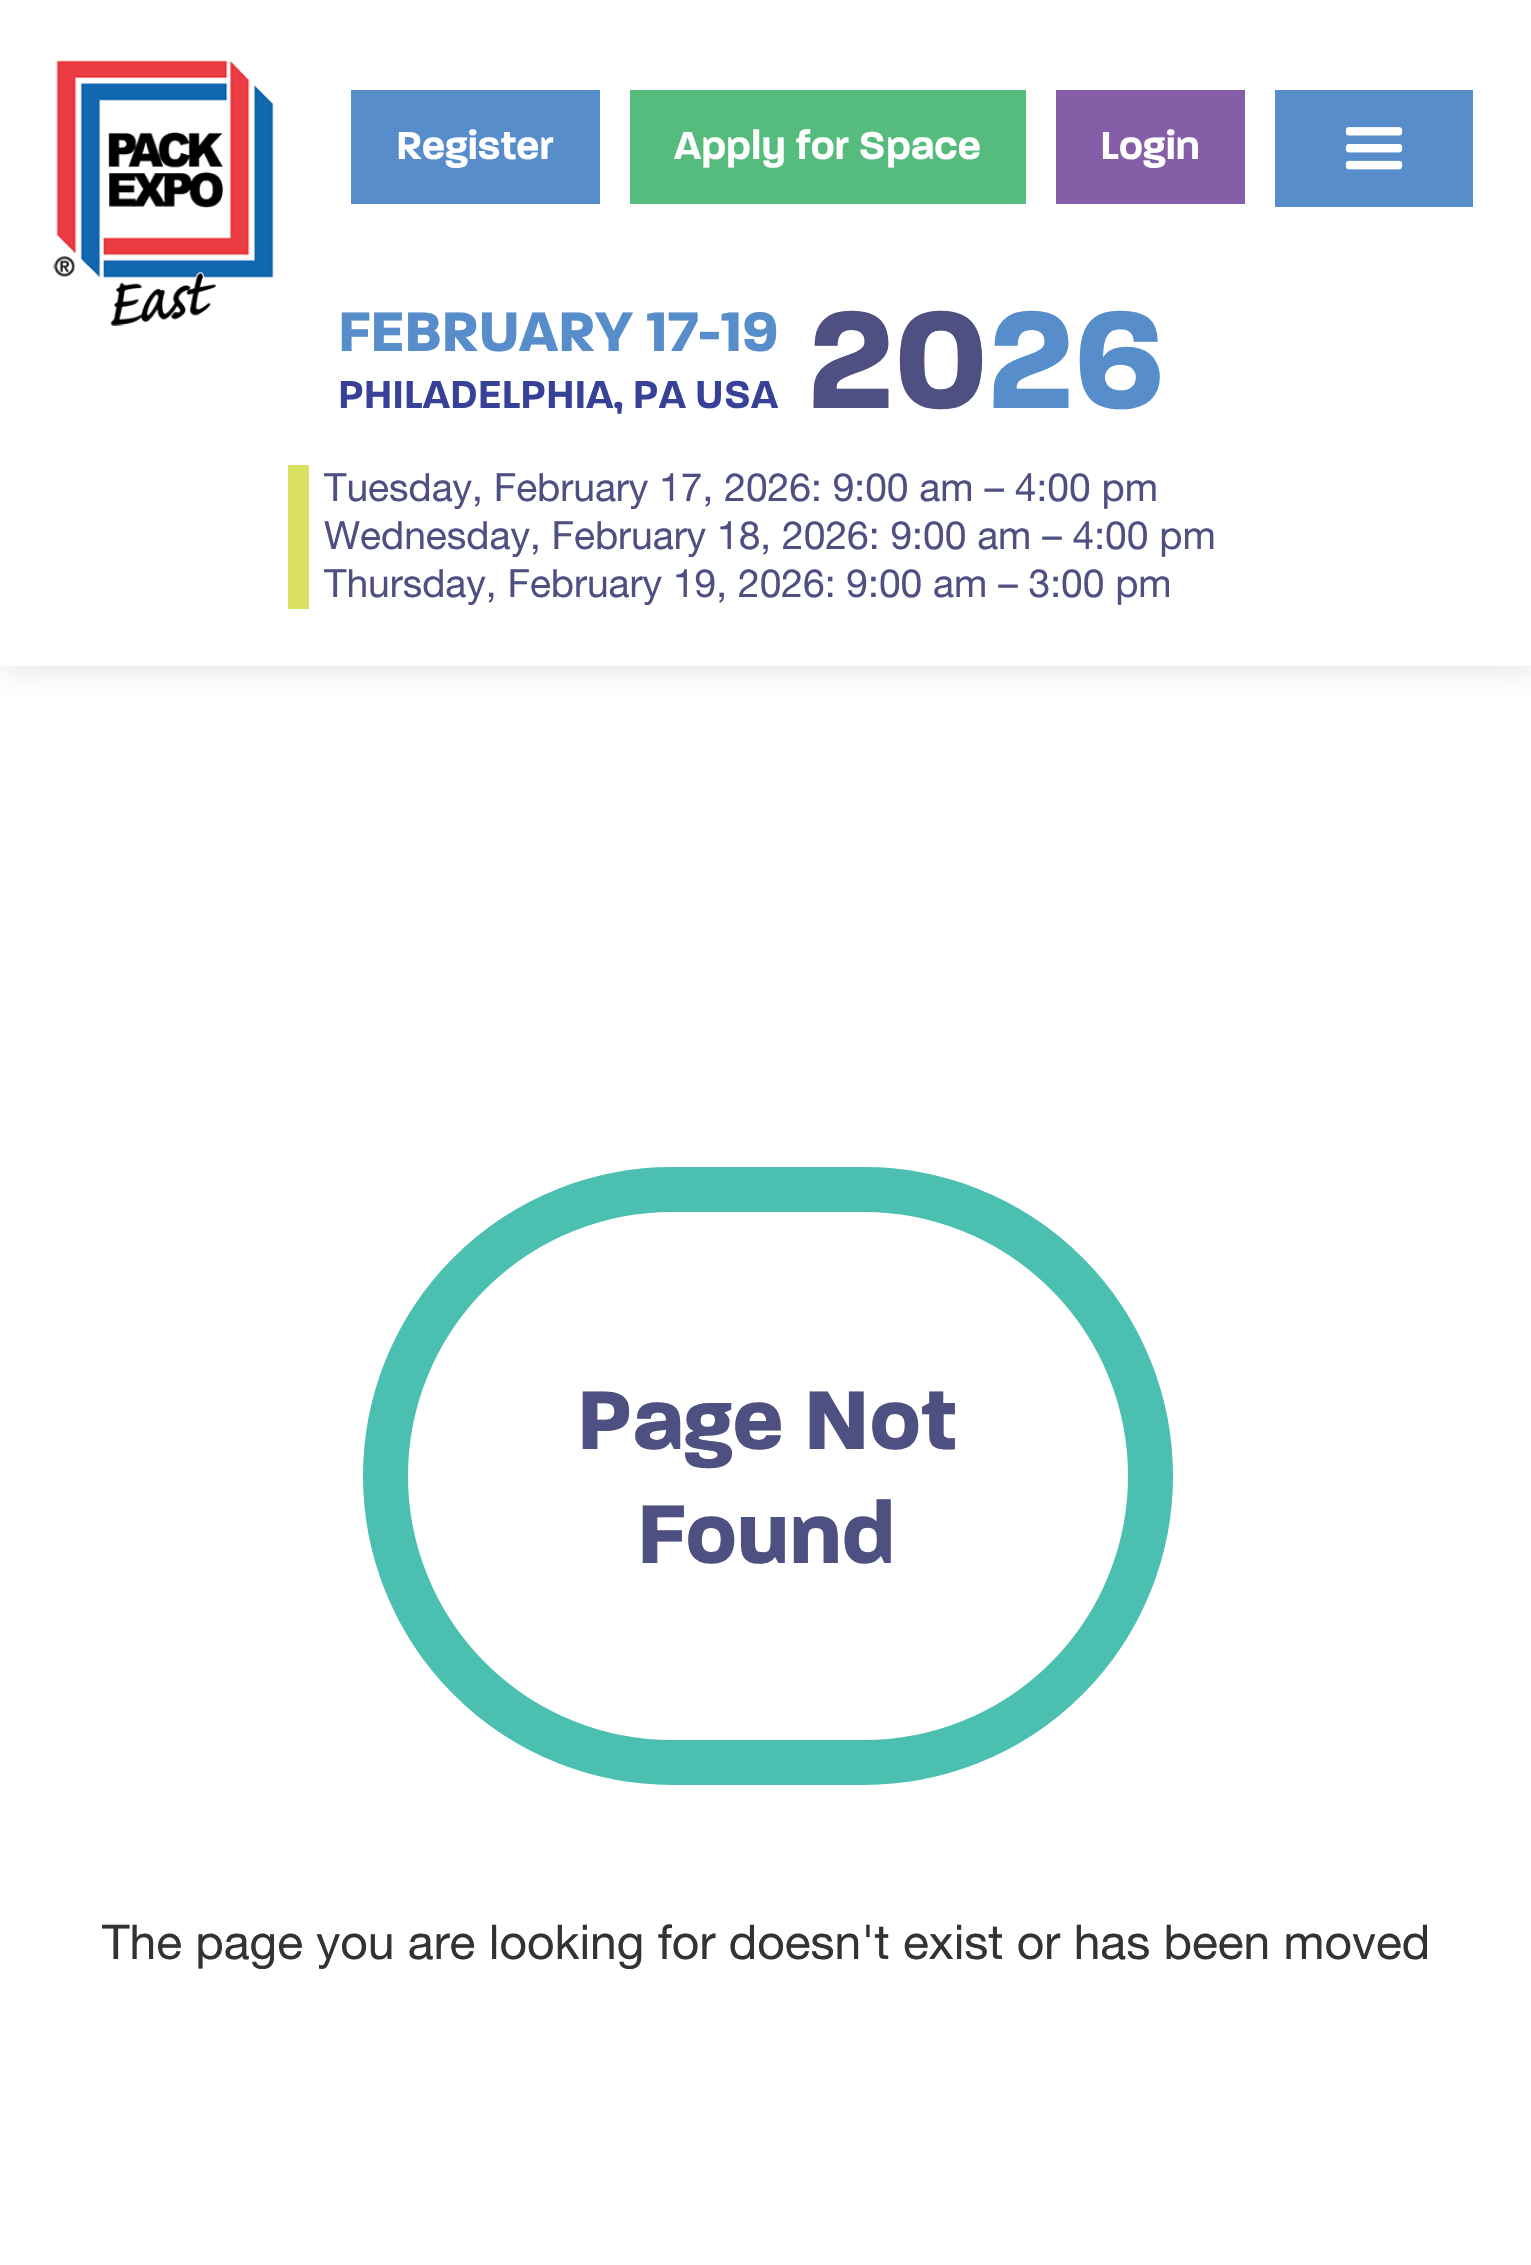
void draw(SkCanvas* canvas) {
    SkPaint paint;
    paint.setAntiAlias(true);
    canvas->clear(0xFFFFFFFF);
    canvas->save();
    canvas->clipRect(SkRect::MakeXYWH(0, 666, 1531, 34));
    paint.setColor(0xFFE3E3E3);
    paint.setMaskFilter(SkMaskFilter::MakeBlur(kNormal_SkBlurStyle, 15));
    canvas->drawRect(SkRect::MakeXYWH(3, 3, 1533, 666), paint);
    paint.setMaskFilter(nullptr);
    canvas->restore();
    canvas->drawImageRect(SkImages::DeferredFromEncodedData(SkData::MakeFromFileName("img1.png")), SkRect::MakeXYWH(53, 60, 221, 266), SkSamplingOptions());
    paint.setColor(0xFF568DCA);
    canvas->drawRect(SkRect::MakeXYWH(351, 90, 249, 114), paint);
    SkFont font1(fontMgr->matchFamilyStyle("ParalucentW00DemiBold", SkFontStyle(600, SkFontStyle::kNormal_Width, SkFontStyle::kUpright_Slant)), 42);
    font1.setSubpixel(true);
    paint.setColor(0xFFFFFFFF);
    canvas->drawString("Register", 396, 159, font1, paint);
    paint.setColor(0xFF55BC7D);
    canvas->drawRect(SkRect::MakeXYWH(630, 90, 396, 114), paint);
    paint.setColor(0xFFFFFFFF);
    canvas->drawString("Apply for Space", 674, 159, font1, paint);
    paint.setColor(0xFF865EA7);
    canvas->drawRect(SkRect::MakeXYWH(1056, 90, 189, 114), paint);
    paint.setColor(0xFFFFFFFF);
    canvas->drawString("Login", 1100, 159, font1, paint);
    paint.setColor(0xFF568DCA);
    canvas->drawRect(SkRect::MakeXYWH(1275, 90, 198, 117), paint);
    canvas->drawImageRect(SkImages::DeferredFromEncodedData(SkData::MakeFromFileName("img2.png")), SkRect::MakeXYWH(1345, 127, 58, 43), SkSamplingOptions());
    SkFont font2(fontMgr->matchFamilyStyle("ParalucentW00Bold", SkFontStyle::Bold()), 60);
    font2.setSubpixel(true);
    canvas->drawString("FEBRUARY 17-19", 338, 351, font2, paint);
    paint.setColor(0xFF384198);
    canvas->drawString("PHILADELPHIA, PA USA", 338, 408, font1, paint);
    SkFont font3(fontMgr->matchFamilyStyle("ParalucentW00Bold", SkFontStyle::Bold()), 150);
    font3.setSubpixel(true);
    paint.setColor(0xFF4E5081);
    canvas->drawString("20", 808, 408, font3, paint);
    paint.setColor(0xFF568DCA);
    canvas->drawString("26", 988, 408, font3, paint);
    paint.setColor(0xFFDAE062);
    canvas->drawRect(SkRect::MakeXYWH(288, 465, 21, 144), paint);
    SkFont font4(fontMgr->matchFamilyStyle("Helvetica Neue", SkFontStyle::Normal()), 39);
    font4.setSubpixel(true);
    paint.setColor(0xFF4E5081);
    canvas->drawString("Tuesday, February 17, 2026: 9:00 am – 4:00 pm", 324, 501, font4, paint);
    canvas->drawString("Wednesday, February 18, 2026: 9:00 am – 4:00 pm", 324, 549, font4, paint);
    canvas->drawString("Thursday, February 19, 2026: 9:00 am – 3:00 pm", 324, 597, font4, paint);
    paint.setStyle(SkPaint::kStroke_Style);
    paint.setStrokeWidth(45);
    paint.setColor(0xFF4BC0B1);
    canvas->drawRoundRect(SkRect::MakeXYWH(385.5f, 1189.5f, 765, 573), 286.5f, 286.5f, paint);
    SkFont font5(fontMgr->matchFamilyStyle("ParalucentW00Bold", SkFontStyle::Bold()), 90);
    font5.setSubpixel(true);
    paint.setStyle(SkPaint::kFill_Style);
    paint.setColor(0xFF4E5081);
    canvas->drawString("Page Not", 577, 1449, font5, paint);
    canvas->drawString("Found", 637, 1563, font5, paint);
    SkFont font6(fontMgr->matchFamilyStyle("Helvetica Neue", SkFontStyle::Normal()), 48);
    font6.setSubpixel(true);
    paint.setColor(0xFF333333);
    canvas->drawString("The page you are looking for doesn't exist or has been moved", 102, 1959, font6, paint);
}
